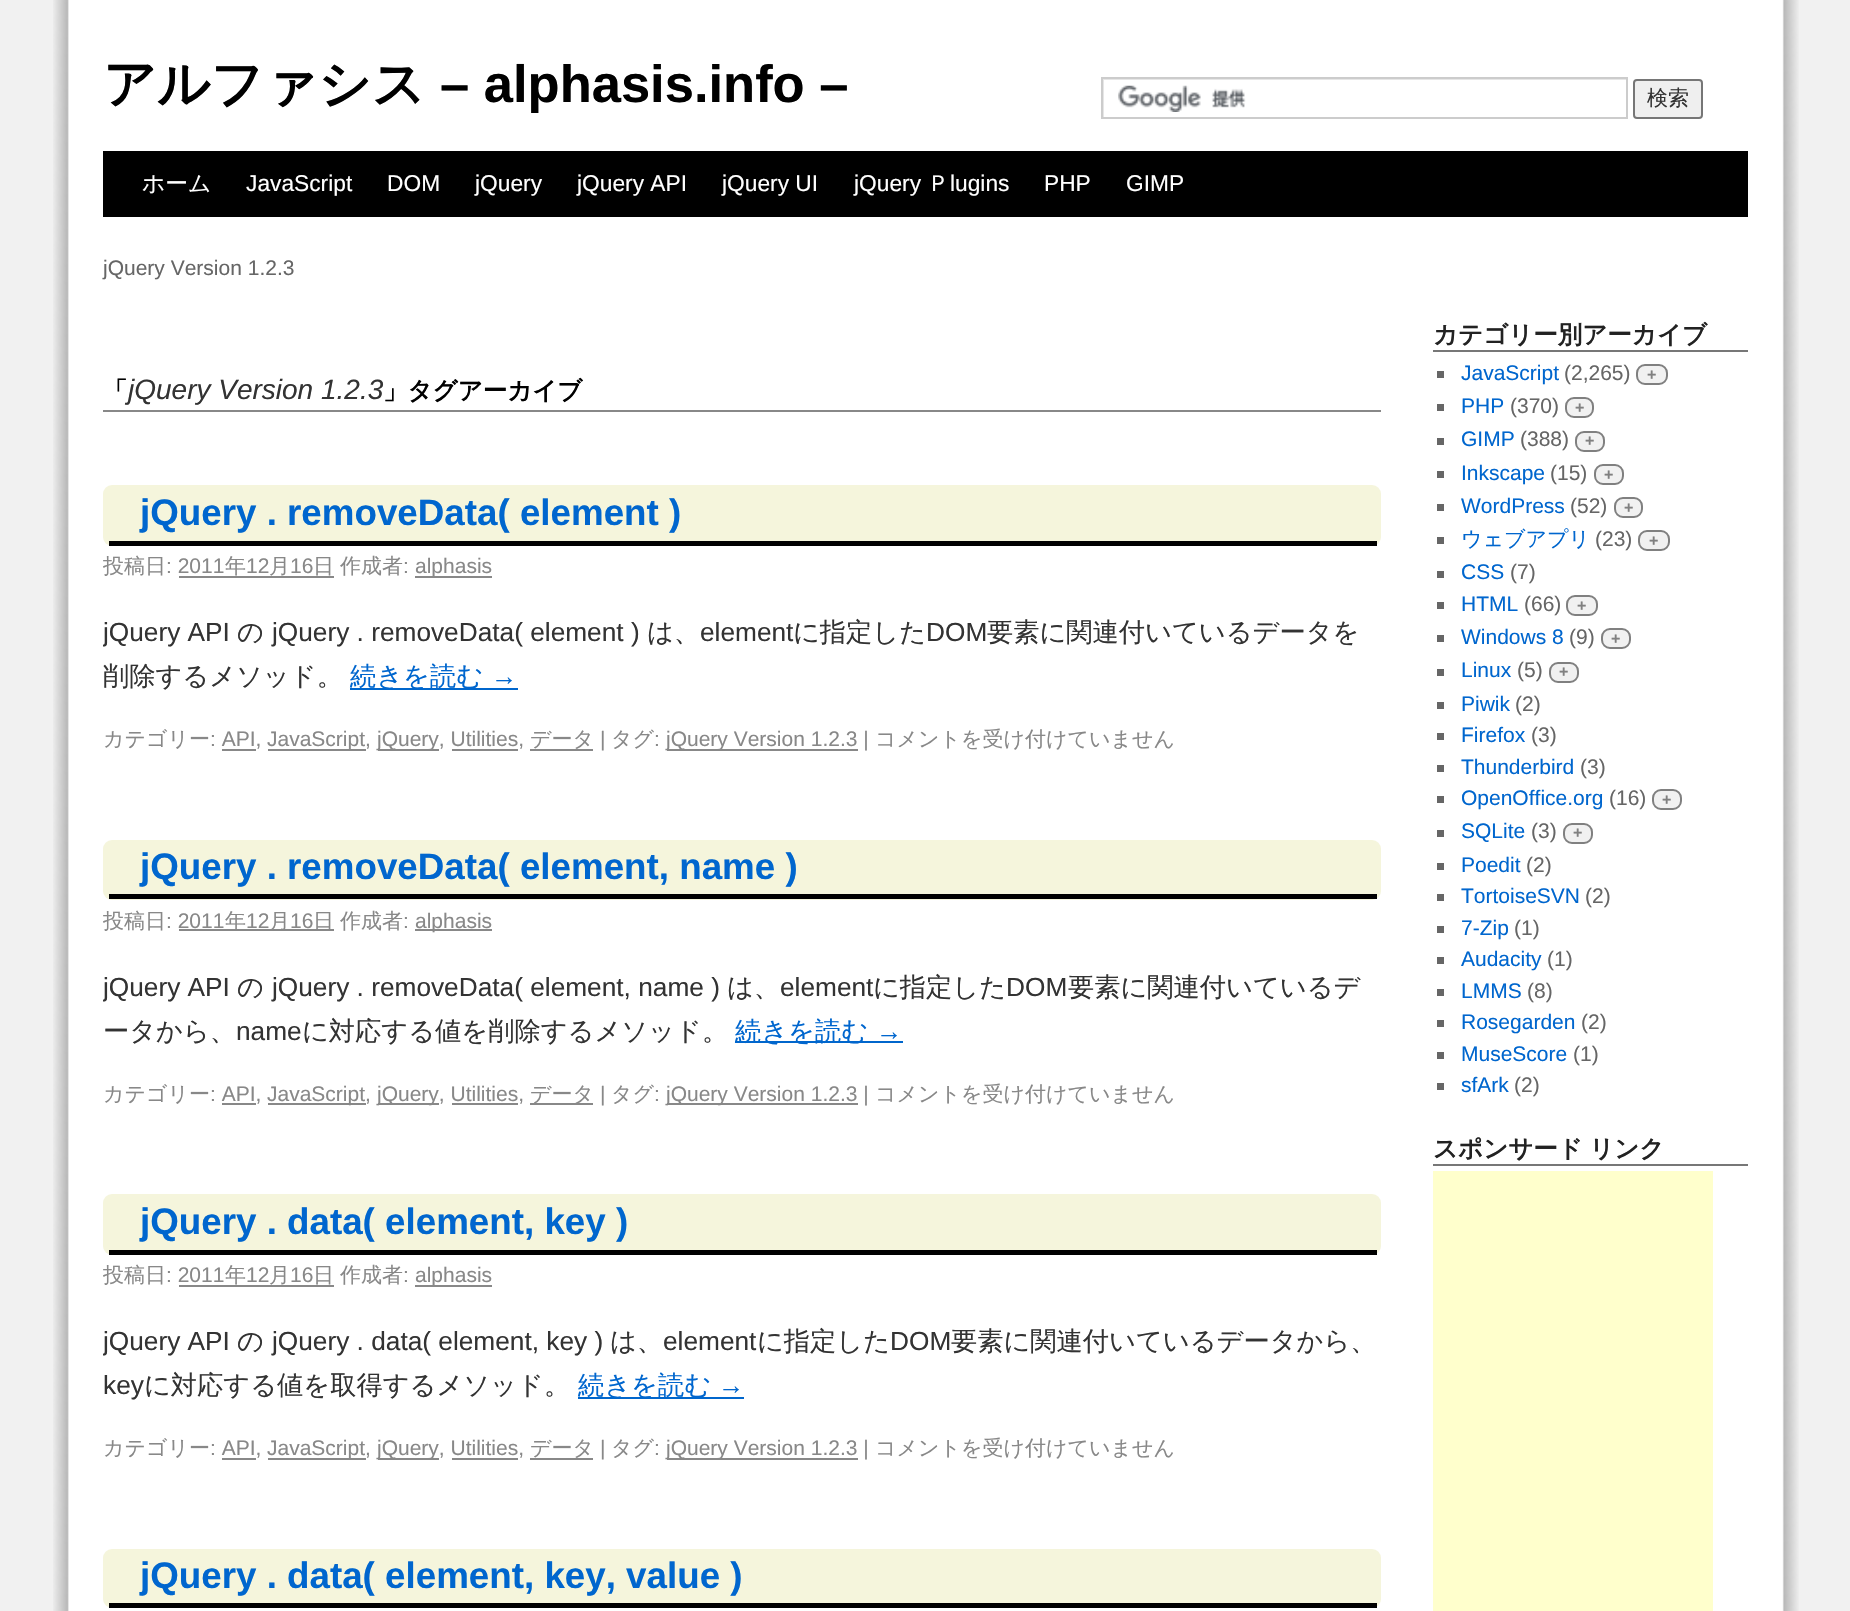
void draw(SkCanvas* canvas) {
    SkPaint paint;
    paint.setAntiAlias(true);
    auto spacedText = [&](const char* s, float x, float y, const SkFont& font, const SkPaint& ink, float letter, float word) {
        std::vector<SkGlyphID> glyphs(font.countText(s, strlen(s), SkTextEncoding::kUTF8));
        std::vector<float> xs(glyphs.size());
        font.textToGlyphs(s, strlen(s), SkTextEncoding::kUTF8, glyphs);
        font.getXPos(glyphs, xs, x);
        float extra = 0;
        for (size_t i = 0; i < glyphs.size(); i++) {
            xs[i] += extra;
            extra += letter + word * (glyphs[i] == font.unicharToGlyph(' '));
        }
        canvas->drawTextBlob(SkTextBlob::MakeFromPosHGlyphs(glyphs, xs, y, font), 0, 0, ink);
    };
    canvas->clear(0xFFF1F1F1);
    canvas->drawImageRect(SkImages::DeferredFromEncodedData(SkData::MakeFromFileName("img1.png")), SkRect::MakeXYWH(53, 0, 1746, 1611), SkSamplingOptions());
    SkFont font1(fontMgr->matchFamilyStyle("WenQuanYi Zen Hei", SkFontStyle::Bold()), 52.5f);
    font1.setSubpixel(true);
    paint.setColor(0xFF000000);
    canvas->drawString("アルファシス", 103, 102, font1, paint);
    SkFont font2(fontMgr->matchFamilyStyle("Liberation Sans", SkFontStyle::Bold()), 52.5f);
    font2.setSubpixel(true);
    canvas->drawString("– alphasis.info –", 440, 102, font2, paint);
    canvas->drawImageRect(SkImages::DeferredFromEncodedData(SkData::MakeFromFileName("img2.png")), SkRect::MakeXYWH(1118, 85, 128, 27), SkSamplingOptions());
    canvas->save();
    canvas->clipRect(SkRect::MakeXYWH(1103, 79, 523, 38));
    paint.setColor(0xFFE6E6E6);
    canvas->drawPath(SkPathBuilder(SkPathFillType::kEvenOdd).moveTo(929, -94).lineTo(1799, -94).lineTo(1799, 290).lineTo(929, 290).close().moveTo(1104, 80).lineTo(1628, 80).lineTo(1628, 119).lineTo(1104, 119).close().detach(), paint);
    canvas->restore();
    paint.setStyle(SkPaint::kStroke_Style);
    paint.setStrokeWidth(2);
    paint.setColor(0xFFCCCCCC);
    canvas->drawRect(SkRect::MakeXYWH(1102, 78, 525, 40), paint);
    paint.setStyle(SkPaint::kFill_Style);
    paint.setColor(0xFFEFEFEF);
    canvas->drawRoundRect(SkRect::MakeXYWH(1634, 80, 68, 38), 3, 3, paint);
    paint.setStyle(SkPaint::kStroke_Style);
    paint.setColor(0xFF767676);
    canvas->drawRoundRect(SkRect::MakeXYWH(1634, 80, 68, 38), 3, 3, paint);
    SkFont font3(fontMgr->matchFamilyStyle("WenQuanYi Zen Hei", SkFontStyle(500, SkFontStyle::kNormal_Width, SkFontStyle::kUpright_Slant)), 21);
    font3.setSubpixel(true);
    paint.setStyle(SkPaint::kFill_Style);
    paint.setColor(0xFF333333);
    canvas->drawString("検索", 1647, 105, font3, paint);
    paint.setColor(0xFF000000);
    canvas->drawRect(SkRect::MakeXYWH(103, 151, 1645, 66), paint);
    SkFont font4(fontMgr->matchFamilyStyle("WenQuanYi Zen Hei", SkFontStyle(500, SkFontStyle::kNormal_Width, SkFontStyle::kUpright_Slant)), 22.75f);
    font4.setSubpixel(true);
    paint.setColor(0xFFFFFFFF);
    canvas->drawString("ホーム", 142, 191, font4, paint);
    SkFont font5(fontMgr->matchFamilyStyle("Liberation Sans", SkFontStyle::Normal()), 22.75f);
    font5.setSubpixel(true);
    canvas->drawString("JavaScript", 246, 191, font5, paint);
    canvas->drawString("DOM", 387, 191, font5, paint);
    canvas->drawString("jQuery", 475, 191, font5, paint);
    canvas->drawString("jQuery API", 577, 191, font5, paint);
    canvas->drawString("jQuery UI", 722, 191, font5, paint);
    canvas->drawString("jQuery", 854, 191, font5, paint);
    canvas->drawString("Ｐ", 927, 191, font4, paint);
    canvas->drawString("lugins", 950, 191, font5, paint);
    canvas->drawString("PHP", 1044, 191, font5, paint);
    canvas->drawString("GIMP", 1126, 191, font5, paint);
    SkFont font6(fontMgr->matchFamilyStyle("Liberation Sans", SkFontStyle::Normal()), 21);
    font6.setSubpixel(true);
    paint.setColor(0xFF666666);
    canvas->drawString("jQuery Version 1.2.3", 103, 275, font6, paint);
    paint.setColor(0xFF888888);
    canvas->drawRect(SkRect::MakeXYWH(103, 410, 1278, 2), paint);
    SkFont font7(fontMgr->matchFamilyStyle("WenQuanYi Zen Hei", SkFontStyle::Bold()), 24.5f);
    font7.setSubpixel(true);
    paint.setColor(0xFF000000);
    canvas->drawString("「", 103, 399, font7, paint);
    SkFont font8(fontMgr->matchFamilyStyle("Liberation Sans", SkFontStyle::Italic()), 28);
    font8.setSubpixel(true);
    paint.setColor(0xFF333333);
    canvas->drawString("jQuery Version 1.2.3", 128, 399, font8, paint);
    paint.setColor(0xFF000000);
    canvas->drawString("」タグアーカイブ", 383, 399, font7, paint);
    paint.setColor(0xFFF5F5DC);
    canvas->drawRoundRect(SkRect::MakeXYWH(103, 485, 1278, 61), 9, 9, paint);
    paint.setColor(0xFF000000);
    canvas->drawRect(SkRect::MakeXYWH(109, 541, 1268, 5), paint);
    SkFont font9(fontMgr->matchFamilyStyle("Liberation Sans", SkFontStyle::Bold()), 36.75f);
    font9.setSubpixel(true);
    paint.setColor(0xFF0066CE);
    canvas->drawString("jQuery . removeData( element )", 140, 525, font9, paint);
    paint.setColor(0xFF888888);
    canvas->drawString("投稿日", 103, 573, font3, paint);
    canvas->drawString(": 2011", 166, 573, font6, paint);
    canvas->drawString("年", 225, 573, font3, paint);
    canvas->drawString("12", 246, 573, font6, paint);
    canvas->drawString("月", 269, 573, font3, paint);
    canvas->drawString("16", 290, 573, font6, paint);
    canvas->drawString("日", 313, 573, font3, paint);
    canvas->drawRect(SkRect::MakeXYWH(179, 576, 155, 2), paint);
    canvas->drawString("作成者", 340, 573, font3, paint);
    canvas->drawString(":", 403, 573, font6, paint);
    canvas->drawRect(SkRect::MakeXYWH(415, 576, 77, 2), paint);
    canvas->drawString("alphasis", 415, 573, font6, paint);
    canvas->save();
    canvas->clipRect(SkRect::MakeXYWH(103, 217, 1645, 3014));
    SkFont font10(fontMgr->matchFamilyStyle("Liberation Sans", SkFontStyle::Normal()), 26.25f);
    font10.setSubpixel(true);
    paint.setColor(0xFF333333);
    canvas->drawString("jQuery API", 103, 641, font10, paint);
    canvas->restore();
    SkFont font11(fontMgr->matchFamilyStyle("WenQuanYi Zen Hei", SkFontStyle(500, SkFontStyle::kNormal_Width, SkFontStyle::kUpright_Slant)), 26.25f);
    font11.setSubpixel(true);
    canvas->drawString("の", 237, 641, font11, paint);
    canvas->drawString("jQuery . removeData( element )", 272, 641, font10, paint);
    canvas->drawString("は、", 647, 641, font11, paint);
    canvas->drawString("element", 700, 641, font10, paint);
    canvas->drawString("に指定した", 793, 641, font11, paint);
    canvas->drawString("DOM", 926, 641, font10, paint);
    canvas->drawString("要素に関連付いているデータを", 987, 641, font11, paint);
    canvas->drawString("削除するメソッド。", 103, 685, font11, paint);
    paint.setColor(0xFF0066CC);
    canvas->drawRect(SkRect::MakeXYWH(350, 688, 168, 2), paint);
    paint.setColor(0xFF0066CE);
    canvas->drawString("続きを読む", 350, 685, font11, paint);
    canvas->drawString("→", 491, 685, font10, paint);
    paint.setColor(0xFF888888);
    canvas->drawString("カテゴリー", 103, 746, font3, paint);
    canvas->drawString(": API,", 210, 746, font6, paint);
    canvas->drawRect(SkRect::MakeXYWH(222, 749, 34, 2), paint);
    canvas->drawRect(SkRect::MakeXYWH(268, 749, 98, 2), paint);
    canvas->drawString("JavaScript,", 267, 746, font6, paint);
    canvas->drawRect(SkRect::MakeXYWH(378, 749, 61, 2), paint);
    canvas->drawString("jQuery, Utilities,", 377, 746, font6, paint);
    canvas->drawRect(SkRect::MakeXYWH(452, 749, 66, 2), paint);
    canvas->drawRect(SkRect::MakeXYWH(530, 749, 63, 2), paint);
    canvas->drawString("データ", 530, 746, font3, paint);
    canvas->drawString("|", 600, 746, font6, paint);
    canvas->drawString("タグ", 611, 746, font3, paint);
    canvas->drawString(":", 654, 746, font6, paint);
    canvas->drawRect(SkRect::MakeXYWH(667, 749, 191, 2), paint);
    canvas->drawString("jQuery Version 1.2.3 |", 666, 746, font6, paint);
    canvas->drawString("コメントを受け付けていません", 875, 746, font3, paint);
    paint.setColor(0xFFF5F5DC);
    canvas->drawRoundRect(SkRect::MakeXYWH(103, 840, 1278, 60), 9, 9, paint);
    paint.setColor(0xFF000000);
    canvas->drawRect(SkRect::MakeXYWH(109, 894, 1268, 5), paint);
    paint.setColor(0xFF0066CE);
    canvas->drawString("jQuery . removeData( element, name )", 140, 879, font9, paint);
    paint.setColor(0xFF888888);
    canvas->drawString("投稿日", 103, 928, font3, paint);
    canvas->drawString(": 2011", 166, 928, font6, paint);
    canvas->drawRect(SkRect::MakeXYWH(179, 929, 155, 2), paint);
    canvas->drawString("年", 225, 928, font3, paint);
    canvas->drawString("12", 246, 928, font6, paint);
    canvas->drawString("月", 269, 928, font3, paint);
    canvas->drawString("16", 290, 928, font6, paint);
    canvas->drawString("日", 313, 928, font3, paint);
    canvas->drawString("作成者", 340, 928, font3, paint);
    canvas->drawString(":", 403, 928, font6, paint);
    canvas->drawRect(SkRect::MakeXYWH(415, 929, 77, 2), paint);
    canvas->drawString("alphasis", 415, 928, font6, paint);
    canvas->save();
    canvas->clipRect(SkRect::MakeXYWH(103, 217, 1645, 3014));
    paint.setColor(0xFF333333);
    canvas->drawString("jQuery API", 103, 996, font10, paint);
    canvas->restore();
    canvas->drawString("の", 237, 996, font11, paint);
    canvas->drawString("jQuery . removeData( element, name )", 272, 996, font10, paint);
    canvas->drawString("は、", 727, 996, font11, paint);
    canvas->drawString("element", 780, 996, font10, paint);
    canvas->drawString("に指定した", 873, 996, font11, paint);
    canvas->drawString("DOM", 1006, 996, font10, paint);
    canvas->drawString("要素に関連付いているデ", 1068, 996, font11, paint);
    canvas->drawString("ータから、", 103, 1040, font11, paint);
    canvas->drawString("name", 236, 1040, font10, paint);
    canvas->drawString("に対応する値を削除するメソッド。", 302, 1040, font11, paint);
    paint.setColor(0xFF0066CC);
    canvas->drawRect(SkRect::MakeXYWH(735, 1041, 168, 2), paint);
    paint.setColor(0xFF0066CE);
    canvas->drawString("続きを読む", 735, 1040, font11, paint);
    canvas->drawString("→", 876, 1040, font10, paint);
    paint.setColor(0xFF888888);
    canvas->drawString("カテゴリー", 103, 1101, font3, paint);
    canvas->drawString(": API,", 210, 1101, font6, paint);
    canvas->drawRect(SkRect::MakeXYWH(222, 1103, 34, 2), paint);
    canvas->drawRect(SkRect::MakeXYWH(268, 1103, 98, 2), paint);
    canvas->drawString("JavaScript,", 267, 1101, font6, paint);
    canvas->drawRect(SkRect::MakeXYWH(378, 1103, 61, 2), paint);
    canvas->drawString("jQuery, Utilities,", 377, 1101, font6, paint);
    canvas->drawRect(SkRect::MakeXYWH(452, 1103, 66, 2), paint);
    canvas->drawRect(SkRect::MakeXYWH(530, 1103, 63, 2), paint);
    canvas->drawString("データ", 530, 1101, font3, paint);
    canvas->drawString("|", 600, 1101, font6, paint);
    canvas->drawString("タグ", 611, 1101, font3, paint);
    canvas->drawString(":", 654, 1101, font6, paint);
    canvas->drawRect(SkRect::MakeXYWH(667, 1103, 191, 2), paint);
    canvas->drawString("jQuery Version 1.2.3 |", 666, 1101, font6, paint);
    canvas->drawString("コメントを受け付けていません", 875, 1101, font3, paint);
    paint.setColor(0xFFF5F5DC);
    canvas->drawRoundRect(SkRect::MakeXYWH(103, 1194, 1278, 61), 9, 9, paint);
    paint.setColor(0xFF000000);
    canvas->drawRect(SkRect::MakeXYWH(109, 1250, 1268, 5), paint);
    paint.setColor(0xFF0066CE);
    canvas->drawString("jQuery . data( element, key )", 140, 1234, font9, paint);
    paint.setColor(0xFF888888);
    canvas->drawString("投稿日", 103, 1282, font3, paint);
    canvas->drawString(": 2011", 166, 1282, font6, paint);
    canvas->drawString("年", 225, 1282, font3, paint);
    canvas->drawString("12", 246, 1282, font6, paint);
    canvas->drawString("月", 269, 1282, font3, paint);
    canvas->drawString("16", 290, 1282, font6, paint);
    canvas->drawString("日", 313, 1282, font3, paint);
    canvas->drawRect(SkRect::MakeXYWH(179, 1285, 155, 2), paint);
    canvas->drawString("作成者", 340, 1282, font3, paint);
    canvas->drawString(":", 403, 1282, font6, paint);
    canvas->drawRect(SkRect::MakeXYWH(415, 1285, 77, 2), paint);
    canvas->drawString("alphasis", 415, 1282, font6, paint);
    canvas->save();
    canvas->clipRect(SkRect::MakeXYWH(103, 217, 1645, 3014));
    paint.setColor(0xFF333333);
    canvas->drawString("jQuery API", 103, 1350, font10, paint);
    canvas->restore();
    canvas->drawString("の", 237, 1350, font11, paint);
    canvas->drawString("jQuery . data( element, key )", 272, 1350, font10, paint);
    canvas->drawString("は、", 610, 1350, font11, paint);
    canvas->drawString("element", 663, 1350, font10, paint);
    canvas->drawString("に指定した", 757, 1350, font11, paint);
    canvas->drawString("DOM", 890, 1350, font10, paint);
    canvas->drawString("要素に関連付いているデータから、", 951, 1350, font11, paint);
    canvas->drawString("key", 103, 1394, font10, paint);
    canvas->drawString("に対応する値を取得するメソッド。", 144, 1394, font11, paint);
    paint.setColor(0xFF0066CC);
    canvas->drawRect(SkRect::MakeXYWH(578, 1397, 166, 2), paint);
    paint.setColor(0xFF0066CE);
    canvas->drawString("続きを読む", 578, 1394, font11, paint);
    canvas->drawString("→", 718, 1394, font10, paint);
    paint.setColor(0xFF888888);
    canvas->drawString("カテゴリー", 103, 1455, font3, paint);
    canvas->drawString(": API,", 210, 1455, font6, paint);
    canvas->drawRect(SkRect::MakeXYWH(222, 1458, 34, 2), paint);
    canvas->drawRect(SkRect::MakeXYWH(268, 1458, 98, 2), paint);
    canvas->drawString("JavaScript,", 267, 1455, font6, paint);
    canvas->drawRect(SkRect::MakeXYWH(378, 1458, 61, 2), paint);
    canvas->drawString("jQuery, Utilities,", 377, 1455, font6, paint);
    canvas->drawRect(SkRect::MakeXYWH(452, 1458, 66, 2), paint);
    canvas->drawRect(SkRect::MakeXYWH(530, 1458, 63, 2), paint);
    canvas->drawString("データ", 530, 1455, font3, paint);
    canvas->drawString("|", 600, 1455, font6, paint);
    canvas->drawString("タグ", 611, 1455, font3, paint);
    canvas->drawString(":", 654, 1455, font6, paint);
    canvas->drawRect(SkRect::MakeXYWH(667, 1458, 191, 2), paint);
    canvas->drawString("jQuery Version 1.2.3 |", 666, 1455, font6, paint);
    canvas->drawString("コメントを受け付けていません", 875, 1455, font3, paint);
    paint.setColor(0xFFF5F5DC);
    canvas->drawRoundRect(SkRect::MakeXYWH(103, 1549, 1278, 59), 9, 9, paint);
    paint.setColor(0xFF000000);
    canvas->drawRect(SkRect::MakeXYWH(109, 1603, 1268, 5), paint);
    paint.setColor(0xFF0066CE);
    canvas->drawString("jQuery . data( element, key, value )", 140, 1588, font9, paint);
    paint.setColor(0xFF777777);
    canvas->drawRect(SkRect::MakeXYWH(1433, 350, 315, 2), paint);
    paint.setColor(0xFF222222);
    canvas->drawString("カテゴリー別アーカイブ", 1433, 343, font7, paint);
    paint.setColor(0xFF666666);
    canvas->drawRect(SkRect::MakeXYWH(1437, 371, 7, 7), paint);
    paint.setColor(0xFF0066CE);
    canvas->drawString("JavaScript", 1461, 380, font6, paint);
    paint.setColor(0xFF666666);
    canvas->drawString("(2,265)", 1564, 380, font6, paint);
    paint.setColor(0xFFF1F1F1);
    canvas->drawRoundRect(SkRect::MakeXYWH(1637, 365, 30, 19), 8, 8, paint);
    paint.setStyle(SkPaint::kStroke_Style);
    paint.setColor(0xFF808080);
    canvas->drawRoundRect(SkRect::MakeXYWH(1637, 365, 30, 19), 8, 8, paint);
    SkFont font12(fontMgr->matchFamilyStyle("Liberation Sans", SkFontStyle::Bold()), 16);
    font12.setSubpixel(true);
    paint.setStyle(SkPaint::kFill_Style);
    canvas->drawString("+", 1647, 380, font12, paint);
    paint.setColor(0xFF666666);
    canvas->drawRect(SkRect::MakeXYWH(1437, 404, 7, 7), paint);
    paint.setColor(0xFF0066CE);
    canvas->drawString("PHP", 1461, 413, font6, paint);
    paint.setColor(0xFF666666);
    canvas->drawString("(370)", 1510, 413, font6, paint);
    paint.setColor(0xFFF1F1F1);
    canvas->drawRoundRect(SkRect::MakeXYWH(1566, 398, 27, 19), 8, 8, paint);
    paint.setStyle(SkPaint::kStroke_Style);
    paint.setColor(0xFF808080);
    canvas->drawRoundRect(SkRect::MakeXYWH(1566, 398, 27, 19), 8, 8, paint);
    paint.setStyle(SkPaint::kFill_Style);
    canvas->drawString("+", 1575, 413, font12, paint);
    paint.setColor(0xFF666666);
    canvas->drawRect(SkRect::MakeXYWH(1437, 438, 7, 7), paint);
    paint.setColor(0xFF0066CE);
    canvas->drawString("GIMP", 1461, 446, font6, paint);
    paint.setColor(0xFF666666);
    canvas->drawString("(388)", 1520, 446, font6, paint);
    paint.setColor(0xFFF1F1F1);
    canvas->drawRoundRect(SkRect::MakeXYWH(1576, 432, 28, 19), 8, 8, paint);
    paint.setStyle(SkPaint::kStroke_Style);
    paint.setColor(0xFF808080);
    canvas->drawRoundRect(SkRect::MakeXYWH(1576, 432, 28, 19), 8, 8, paint);
    paint.setStyle(SkPaint::kFill_Style);
    canvas->drawString("+", 1585, 446, font12, paint);
    paint.setColor(0xFF666666);
    canvas->drawRect(SkRect::MakeXYWH(1437, 471, 7, 7), paint);
    paint.setColor(0xFF0066CE);
    canvas->drawString("Inkscape", 1461, 480, font6, paint);
    paint.setColor(0xFF666666);
    canvas->drawString("(15)", 1550, 480, font6, paint);
    paint.setColor(0xFFF1F1F1);
    canvas->drawRoundRect(SkRect::MakeXYWH(1595, 465, 28, 19), 8, 8, paint);
    paint.setStyle(SkPaint::kStroke_Style);
    paint.setColor(0xFF808080);
    canvas->drawRoundRect(SkRect::MakeXYWH(1595, 465, 28, 19), 8, 8, paint);
    paint.setStyle(SkPaint::kFill_Style);
    canvas->drawString("+", 1604, 480, font12, paint);
    paint.setColor(0xFF666666);
    canvas->drawRect(SkRect::MakeXYWH(1437, 504, 7, 7), paint);
    paint.setColor(0xFF0066CE);
    canvas->drawString("WordPress", 1461, 513, font6, paint);
    paint.setColor(0xFF666666);
    canvas->drawString("(52)", 1570, 513, font6, paint);
    paint.setColor(0xFFF1F1F1);
    canvas->drawRoundRect(SkRect::MakeXYWH(1615, 498, 27, 19), 8, 8, paint);
    paint.setStyle(SkPaint::kStroke_Style);
    paint.setColor(0xFF808080);
    canvas->drawRoundRect(SkRect::MakeXYWH(1615, 498, 27, 19), 8, 8, paint);
    paint.setStyle(SkPaint::kFill_Style);
    canvas->drawString("+", 1624, 513, font12, paint);
    paint.setColor(0xFF666666);
    canvas->drawRect(SkRect::MakeXYWH(1437, 537, 7, 7), paint);
    paint.setColor(0xFF0066CE);
    canvas->drawString("ウェブアプリ", 1461, 546, font3, paint);
    paint.setColor(0xFF666666);
    canvas->drawString("(23)", 1595, 546, font6, paint);
    paint.setColor(0xFFF1F1F1);
    canvas->drawRoundRect(SkRect::MakeXYWH(1639, 531, 30, 19), 8, 8, paint);
    paint.setStyle(SkPaint::kStroke_Style);
    paint.setColor(0xFF808080);
    canvas->drawRoundRect(SkRect::MakeXYWH(1639, 531, 30, 19), 8, 8, paint);
    paint.setStyle(SkPaint::kFill_Style);
    canvas->drawString("+", 1649, 546, font12, paint);
    paint.setColor(0xFF666666);
    canvas->drawRect(SkRect::MakeXYWH(1437, 571, 7, 7), paint);
    paint.setColor(0xFF0066CE);
    canvas->drawString("CSS", 1461, 579, font6, paint);
    paint.setColor(0xFF666666);
    canvas->drawString("(7)", 1510, 579, font6, paint);
    canvas->drawRect(SkRect::MakeXYWH(1437, 602, 7, 7), paint);
    paint.setColor(0xFF0066CE);
    canvas->drawString("HTML", 1461, 611, font6, paint);
    paint.setColor(0xFF666666);
    canvas->drawString("(66)", 1524, 611, font6, paint);
    paint.setColor(0xFFF1F1F1);
    canvas->drawRoundRect(SkRect::MakeXYWH(1567, 596, 30, 19), 8, 8, paint);
    paint.setStyle(SkPaint::kStroke_Style);
    paint.setColor(0xFF808080);
    canvas->drawRoundRect(SkRect::MakeXYWH(1567, 596, 30, 19), 8, 8, paint);
    paint.setStyle(SkPaint::kFill_Style);
    canvas->drawString("+", 1577, 611, font12, paint);
    paint.setColor(0xFF666666);
    canvas->drawRect(SkRect::MakeXYWH(1437, 635, 7, 7), paint);
    paint.setColor(0xFF0066CE);
    canvas->drawString("Windows 8", 1461, 644, font6, paint);
    paint.setColor(0xFF666666);
    canvas->drawString("(9)", 1569, 644, font6, paint);
    paint.setColor(0xFFF1F1F1);
    canvas->drawRoundRect(SkRect::MakeXYWH(1602, 629, 28, 19), 8, 8, paint);
    paint.setStyle(SkPaint::kStroke_Style);
    paint.setColor(0xFF808080);
    canvas->drawRoundRect(SkRect::MakeXYWH(1602, 629, 28, 19), 8, 8, paint);
    paint.setStyle(SkPaint::kFill_Style);
    canvas->drawString("+", 1611, 644, font12, paint);
    paint.setColor(0xFF666666);
    canvas->drawRect(SkRect::MakeXYWH(1437, 669, 7, 7), paint);
    paint.setColor(0xFF0066CE);
    canvas->drawString("Linux", 1461, 677, font6, paint);
    paint.setColor(0xFF666666);
    canvas->drawString("(5)", 1517, 677, font6, paint);
    paint.setColor(0xFFF1F1F1);
    canvas->drawRoundRect(SkRect::MakeXYWH(1550, 663, 28, 19), 8, 8, paint);
    paint.setStyle(SkPaint::kStroke_Style);
    paint.setColor(0xFF808080);
    canvas->drawRoundRect(SkRect::MakeXYWH(1550, 663, 28, 19), 8, 8, paint);
    paint.setStyle(SkPaint::kFill_Style);
    canvas->drawString("+", 1559, 677, font12, paint);
    paint.setColor(0xFF666666);
    canvas->drawRect(SkRect::MakeXYWH(1437, 702, 7, 7), paint);
    paint.setColor(0xFF0066CE);
    canvas->drawString("Piwik", 1461, 711, font6, paint);
    paint.setColor(0xFF666666);
    canvas->drawString("(2)", 1515, 711, font6, paint);
    canvas->drawRect(SkRect::MakeXYWH(1437, 733, 7, 7), paint);
    paint.setColor(0xFF0066CE);
    canvas->drawString("Firefox", 1461, 742, font6, paint);
    paint.setColor(0xFF666666);
    canvas->drawString("(3)", 1531, 742, font6, paint);
    canvas->drawRect(SkRect::MakeXYWH(1437, 765, 7, 7), paint);
    paint.setColor(0xFF0066CE);
    canvas->drawString("Thunderbird", 1461, 774, font6, paint);
    paint.setColor(0xFF666666);
    canvas->drawString("(3)", 1580, 774, font6, paint);
    canvas->drawRect(SkRect::MakeXYWH(1437, 796, 7, 7), paint);
    paint.setColor(0xFF0066CE);
    canvas->drawString("OpenOffice.org", 1461, 805, font6, paint);
    paint.setColor(0xFF666666);
    canvas->drawString("(16)", 1609, 805, font6, paint);
    paint.setColor(0xFFF1F1F1);
    canvas->drawRoundRect(SkRect::MakeXYWH(1653, 790, 28, 19), 8, 8, paint);
    paint.setStyle(SkPaint::kStroke_Style);
    paint.setColor(0xFF808080);
    canvas->drawRoundRect(SkRect::MakeXYWH(1653, 790, 28, 19), 8, 8, paint);
    paint.setStyle(SkPaint::kFill_Style);
    canvas->drawString("+", 1662, 805, font12, paint);
    paint.setColor(0xFF666666);
    canvas->drawRect(SkRect::MakeXYWH(1437, 830, 7, 7), paint);
    paint.setColor(0xFF0066CE);
    canvas->drawString("SQLite", 1461, 838, font6, paint);
    paint.setColor(0xFF666666);
    canvas->drawString("(3)", 1531, 838, font6, paint);
    paint.setColor(0xFFF1F1F1);
    canvas->drawRoundRect(SkRect::MakeXYWH(1564, 824, 28, 19), 8, 8, paint);
    paint.setStyle(SkPaint::kStroke_Style);
    paint.setColor(0xFF808080);
    canvas->drawRoundRect(SkRect::MakeXYWH(1564, 824, 28, 19), 8, 8, paint);
    paint.setStyle(SkPaint::kFill_Style);
    canvas->drawString("+", 1573, 838, font12, paint);
    paint.setColor(0xFF666666);
    canvas->drawRect(SkRect::MakeXYWH(1437, 863, 7, 7), paint);
    paint.setColor(0xFF0066CE);
    canvas->drawString("Poedit", 1461, 872, font6, paint);
    paint.setColor(0xFF666666);
    canvas->drawString("(2)", 1526, 872, font6, paint);
    canvas->drawRect(SkRect::MakeXYWH(1437, 894, 7, 7), paint);
    paint.setColor(0xFF0066CE);
    canvas->drawString("TortoiseSVN", 1461, 903, font6, paint);
    paint.setColor(0xFF666666);
    canvas->drawString("(2)", 1585, 903, font6, paint);
    canvas->drawRect(SkRect::MakeXYWH(1437, 926, 7, 7), paint);
    paint.setColor(0xFF0066CE);
    canvas->drawString("7-Zip", 1461, 935, font6, paint);
    paint.setColor(0xFF666666);
    canvas->drawString("(1)", 1514, 935, font6, paint);
    canvas->drawRect(SkRect::MakeXYWH(1437, 957, 7, 7), paint);
    paint.setColor(0xFF0066CE);
    canvas->drawString("Audacity", 1461, 966, font6, paint);
    paint.setColor(0xFF666666);
    canvas->drawString("(1)", 1547, 966, font6, paint);
    canvas->drawRect(SkRect::MakeXYWH(1437, 989, 7, 7), paint);
    paint.setColor(0xFF0066CE);
    canvas->drawString("LMMS", 1461, 998, font6, paint);
    paint.setColor(0xFF666666);
    canvas->drawString("(8)", 1527, 998, font6, paint);
    canvas->drawRect(SkRect::MakeXYWH(1437, 1020, 7, 7), paint);
    paint.setColor(0xFF0066CE);
    canvas->drawString("Rosegarden", 1461, 1029, font6, paint);
    paint.setColor(0xFF666666);
    canvas->drawString("(2)", 1581, 1029, font6, paint);
    canvas->drawRect(SkRect::MakeXYWH(1437, 1052, 7, 7), paint);
    paint.setColor(0xFF0066CE);
    canvas->drawString("MuseScore", 1461, 1061, font6, paint);
    paint.setColor(0xFF666666);
    canvas->drawString("(1)", 1573, 1061, font6, paint);
    canvas->drawRect(SkRect::MakeXYWH(1437, 1083, 7, 7), paint);
    paint.setColor(0xFF0066CE);
    canvas->drawString("sfArk", 1461, 1092, font6, paint);
    paint.setColor(0xFF666666);
    canvas->drawString("(2)", 1514, 1092, font6, paint);
    paint.setColor(0xFF777777);
    canvas->drawRect(SkRect::MakeXYWH(1433, 1164, 315, 2), paint);
    paint.setColor(0xFF222222);
    spacedText("スポンサード リンク", 1433, 1157, font7, paint, 0, -1);
    paint.setColor(0xFFFFFFCC);
    canvas->drawRect(SkRect::MakeXYWH(1433, 1171, 280, 440), paint);
}
